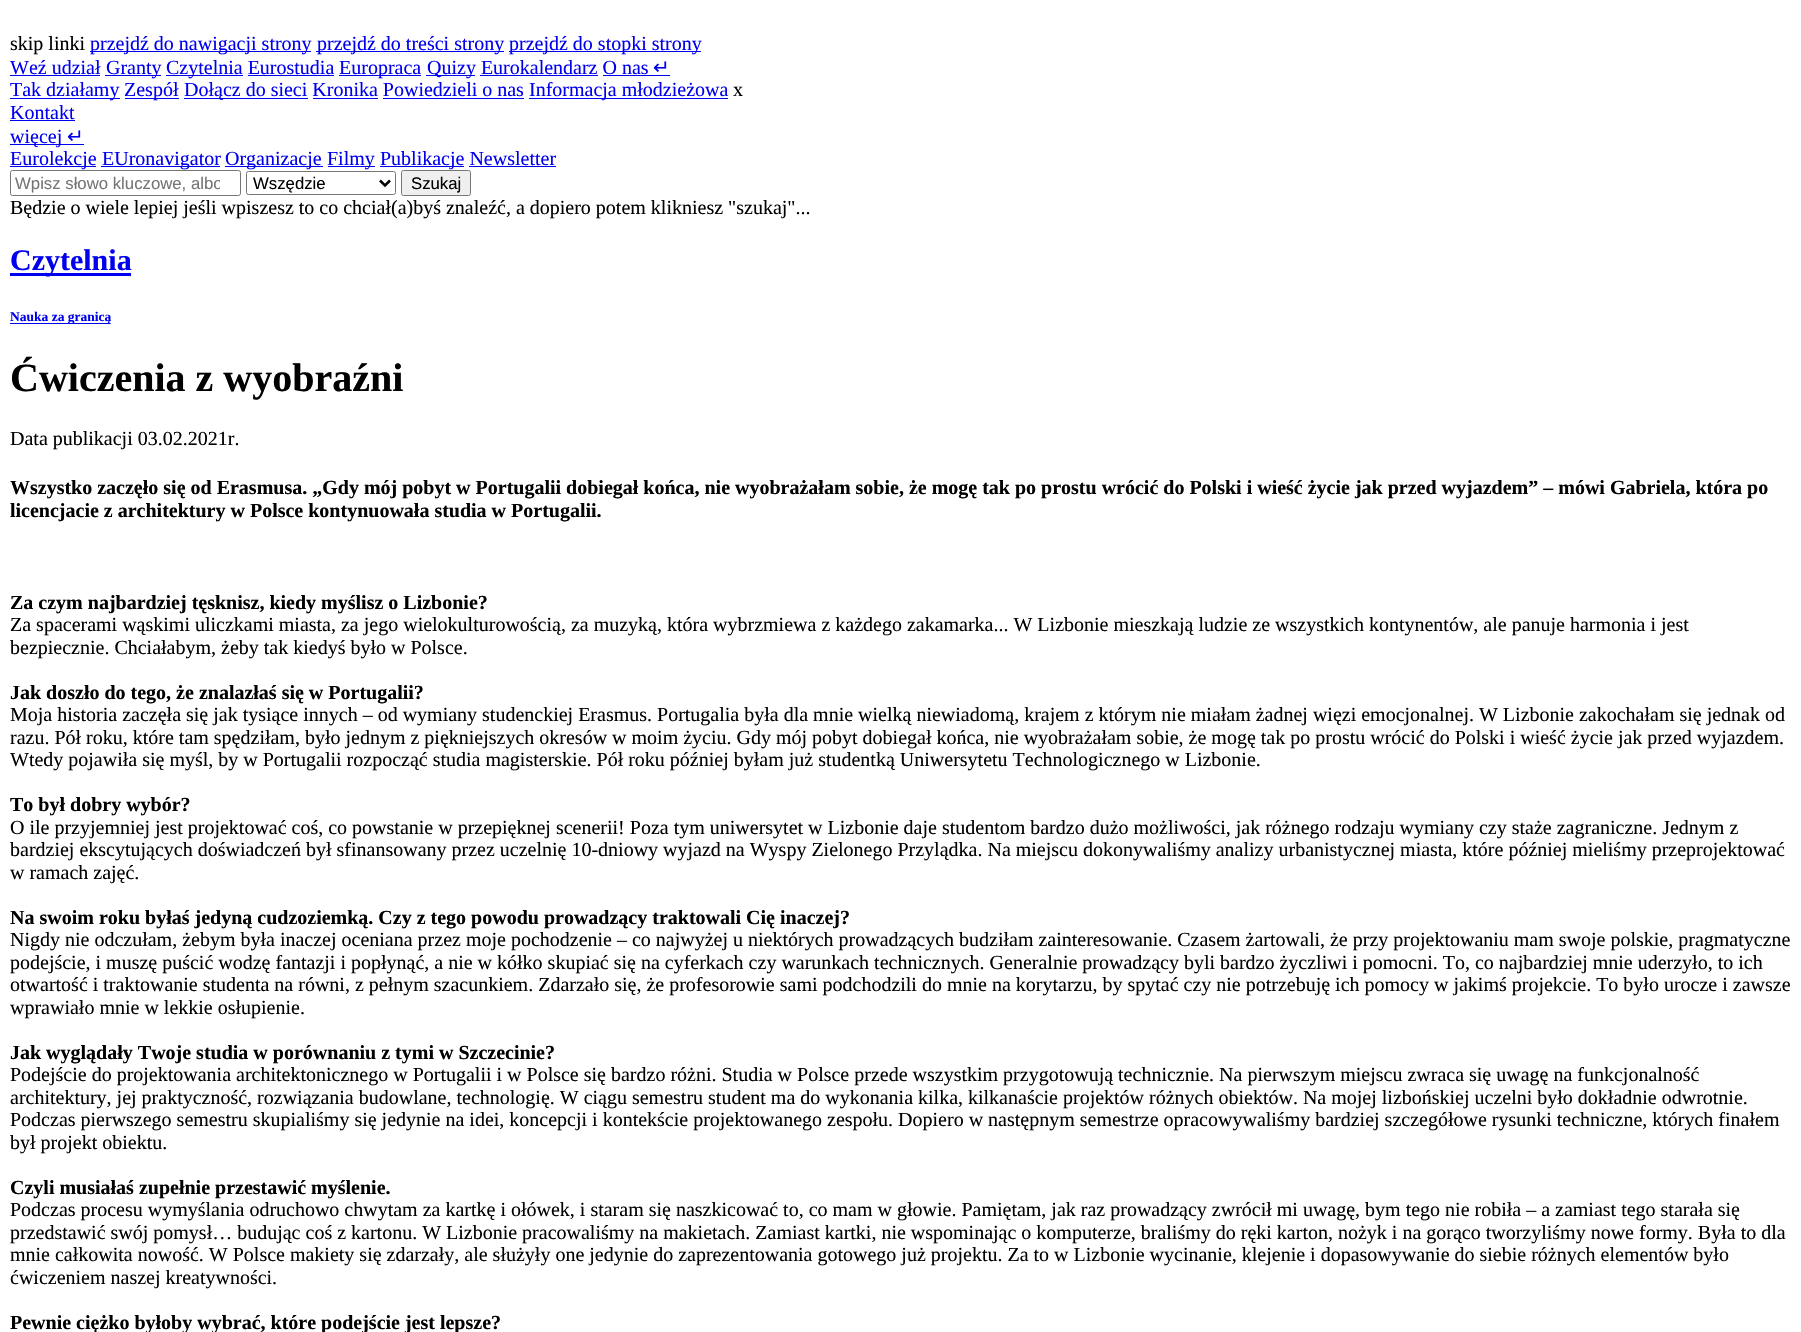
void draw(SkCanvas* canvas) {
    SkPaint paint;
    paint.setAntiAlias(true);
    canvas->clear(0xFFFFFFFF);
    SkFont font1(fontMgr->matchFamilyStyle("Liberation Serif", SkFontStyle::Normal()), 20);
    font1.setSubpixel(true);
    paint.setColor(0xFF000000);
    canvas->drawString("skip linki", 10, 50, font1, paint);
    paint.setColor(0xFF0000EE);
    canvas->drawRect(SkRect::MakeXYWH(90, 51, 221, 1), paint);
    canvas->drawString("przejdź do nawigacji strony", 90, 50, font1, paint);
    canvas->drawRect(SkRect::MakeXYWH(316, 51, 188, 1), paint);
    canvas->drawString("przejdź do treści strony", 317, 50, font1, paint);
    canvas->drawRect(SkRect::MakeXYWH(509, 51, 192, 1), paint);
    canvas->drawString("przejdź do stopki strony", 509, 50, font1, paint);
    canvas->drawString("Weź udział", 10, 74, font1, paint);
    canvas->drawRect(SkRect::MakeXYWH(10, 75, 90, 1), paint);
    canvas->drawRect(SkRect::MakeXYWH(105, 75, 56, 1), paint);
    canvas->drawString("Granty", 106, 74, font1, paint);
    canvas->drawRect(SkRect::MakeXYWH(166, 75, 77, 1), paint);
    canvas->drawString("Czytelnia Eurostudia", 166, 74, font1, paint);
    canvas->drawRect(SkRect::MakeXYWH(339, 75, 82, 1), paint);
    canvas->drawString("Europraca", 339, 74, font1, paint);
    canvas->drawRect(SkRect::MakeXYWH(426, 75, 49, 1), paint);
    canvas->drawString("Quizy Eurokalendarz O nas", 427, 74, font1, paint);
    SkFont font2(fontMgr->matchFamilyStyle("DejaVu Sans", SkFontStyle::Normal()), 20);
    font2.setSubpixel(true);
    canvas->drawString("↵", 653, 74, font2, paint);
    canvas->drawRect(SkRect::MakeXYWH(603, 75, 67, 1), paint);
    canvas->drawRect(SkRect::MakeXYWH(248, 75, 86, 1), paint);
    canvas->drawRect(SkRect::MakeXYWH(480, 75, 118, 1), paint);
    canvas->drawRect(SkRect::MakeXYWH(10, 98, 110, 1), paint);
    canvas->drawString("Tak działamy", 10, 96, font1, paint);
    canvas->drawRect(SkRect::MakeXYWH(125, 98, 54, 1), paint);
    canvas->drawString("Zespół", 124, 96, font1, paint);
    canvas->drawRect(SkRect::MakeXYWH(184, 98, 124, 1), paint);
    canvas->drawString("Dołącz do sieci Kronika Powiedzieli o nas", 184, 96, font1, paint);
    canvas->drawRect(SkRect::MakeXYWH(529, 98, 199, 1), paint);
    canvas->drawString("Informacja młodzieżowa", 529, 96, font1, paint);
    paint.setColor(0xFF000000);
    canvas->drawString("x", 733, 96, font1, paint);
    paint.setColor(0xFF0000EE);
    canvas->drawRect(SkRect::MakeXYWH(313, 98, 65, 1), paint);
    canvas->drawRect(SkRect::MakeXYWH(383, 98, 141, 1), paint);
    canvas->drawString("Kontakt", 10, 119, font1, paint);
    canvas->drawRect(SkRect::MakeXYWH(10, 120, 65, 1), paint);
    canvas->drawRect(SkRect::MakeXYWH(10, 144, 74, 1), paint);
    canvas->drawString("więcej", 10, 143, font1, paint);
    canvas->drawString("↵", 67, 143, font2, paint);
    canvas->drawRect(SkRect::MakeXYWH(10, 166, 86, 1), paint);
    canvas->drawString("Eurolekcje", 10, 165, font1, paint);
    canvas->drawRect(SkRect::MakeXYWH(101, 166, 119, 1), paint);
    canvas->drawString("EUronavigator", 102, 165, font1, paint);
    canvas->drawRect(SkRect::MakeXYWH(225, 166, 98, 1), paint);
    canvas->drawString("Organizacje", 225, 165, font1, paint);
    canvas->drawRect(SkRect::MakeXYWH(328, 166, 47, 1), paint);
    canvas->drawString("Filmy", 327, 165, font1, paint);
    canvas->drawRect(SkRect::MakeXYWH(380, 166, 84, 1), paint);
    canvas->drawString("Publikacje Newsletter", 380, 165, font1, paint);
    canvas->drawRect(SkRect::MakeXYWH(469, 166, 87, 1), paint);
    paint.setStyle(SkPaint::kStroke_Style);
    paint.setStrokeWidth(1);
    paint.setColor(0xFF767676);
    canvas->drawRoundRect(SkRect::MakeXYWH(10.5f, 170.5f, 230, 25), 2, 2, paint);
    canvas->save();
    canvas->clipRect(SkRect::MakeXYWH(15, 174, 205, 19));
    SkFont font3(fontMgr->matchFamilyStyle("Liberation Sans", SkFontStyle::Normal()), 16.75f);
    font3.setSubpixel(true);
    paint.setStyle(SkPaint::kFill_Style);
    paint.setColor(0xFF757575);
    canvas->drawString("Wpisz słowo kluczowe, albo", 15, 189, font3, paint);
    canvas->restore();
    paint.setStyle(SkPaint::kStroke_Style);
    paint.setColor(0xFF767676);
    canvas->drawRoundRect(SkRect::MakeXYWH(246.5f, 171.5f, 149, 23), 2, 2, paint);
    paint.setStrokeWidth(2.5f);
    paint.setColor(0xFF000000);
    canvas->drawPath(SkPathBuilder().moveTo(380, 180.5f).lineTo(385, 185.5f).lineTo(390, 180.5f).detach(), paint);
    paint.setStyle(SkPaint::kFill_Style);
    canvas->drawString("Wszędzie", 253, 189, font3, paint);
    paint.setColor(0xFFEFEFEF);
    canvas->drawRoundRect(SkRect::MakeXYWH(401.5f, 170.5f, 69, 25), 2, 2, paint);
    paint.setStyle(SkPaint::kStroke_Style);
    paint.setStrokeWidth(1);
    paint.setColor(0xFF767676);
    canvas->drawRoundRect(SkRect::MakeXYWH(401.5f, 170.5f, 69, 25), 2, 2, paint);
    paint.setStyle(SkPaint::kFill_Style);
    paint.setColor(0xFF000000);
    canvas->drawString("Szukaj", 411, 189, font3, paint);
    canvas->drawString("Będzie o wiele lepiej jeśli wpiszesz to co chciał(a)byś znaleźć, a dopiero potem klikniesz \"szukaj\"...", 10, 214, font1, paint);
    paint.setColor(0xFF0000EE);
    canvas->drawRect(SkRect::MakeXYWH(10, 273, 121, 3), paint);
    SkFont font4(fontMgr->matchFamilyStyle("Liberation Serif", SkFontStyle::Bold()), 30);
    font4.setSubpixel(true);
    canvas->drawString("Czytelnia", 10, 270, font4, paint);
    canvas->drawRect(SkRect::MakeXYWH(10, 323, 100, 1), paint);
    SkFont font5(fontMgr->matchFamilyStyle("Liberation Serif", SkFontStyle::Bold()), 13.5f);
    font5.setSubpixel(true);
    canvas->drawString("Nauka za granicą", 10, 321, font5, paint);
    SkFont font6(fontMgr->matchFamilyStyle("Liberation Serif", SkFontStyle::Bold()), 40);
    font6.setSubpixel(true);
    paint.setColor(0xFF000000);
    canvas->drawString("Ćwiczenia z wyobraźni", 10, 391, font6, paint);
    canvas->drawString("Data publikacji 03.02.2021r.", 10, 445, font1, paint);
    SkFont font7(fontMgr->matchFamilyStyle("Liberation Serif", SkFontStyle::Bold()), 20);
    font7.setSubpixel(true);
    canvas->drawString("Wszystko zaczęło się od Erasmusa. „Gdy mój pobyt w Portugalii dobiegał końca, nie wyobrażałam sobie, że mogę tak po prostu wrócić do Polski i wieść życie jak przed wyjazdem” – mówi Gabriela, która po", 10, 494, font7, paint);
    canvas->drawString("licencjacie z architektury w Polsce kontynuowała studia w Portugalii.", 10, 517, font7, paint);
    canvas->drawString("Za czym najbardziej tęsknisz, kiedy myślisz o Lizbonie?", 10, 609, font7, paint);
    canvas->drawString("Za spacerami wąskimi uliczkami miasta, za jego wielokulturowością, za muzyką, która wybrzmiewa z każdego zakamarka... W Lizbonie mieszkają ludzie ze wszystkich kontynentów, ale panuje harmonia i jest", 10, 631, font1, paint);
    canvas->drawString("bezpiecznie. Chciałabym, żeby tak kiedyś było w Polsce.", 10, 654, font1, paint);
    canvas->drawString("Jak doszło do tego, że znalazłaś się w Portugalii?", 10, 699, font7, paint);
    canvas->drawString("Moja historia zaczęła się jak tysiące innych – od wymiany studenckiej Erasmus. Portugalia była dla mnie wielką niewiadomą, krajem z którym nie miałam żadnej więzi emocjonalnej. W Lizbonie zakochałam się jednak od", 10, 721, font1, paint);
    canvas->drawString("razu. Pół roku, które tam spędziłam, było jednym z piękniejszych okresów w moim życiu. Gdy mój pobyt dobiegał końca, nie wyobrażałam sobie, że mogę tak po prostu wrócić do Polski i wieść życie jak przed wyjazdem.", 10, 744, font1, paint);
    canvas->drawString("Wtedy pojawiła się myśl, by w Portugalii rozpocząć studia magisterskie. Pół roku później byłam już studentką Uniwersytetu Technologicznego w Lizbonie.", 10, 766, font1, paint);
    canvas->drawString("To był dobry wybór?", 10, 811, font7, paint);
    canvas->drawString("O ile przyjemniej jest projektować coś, co powstanie w przepięknej scenerii! Poza tym uniwersytet w Lizbonie daje studentom bardzo dużo możliwości, jak różnego rodzaju wymiany czy staże zagraniczne. Jednym z", 10, 834, font1, paint);
    canvas->drawString("bardziej ekscytujących doświadczeń był sfinansowany przez uczelnię 10-dniowy wyjazd na Wyspy Zielonego Przylądka. Na miejscu dokonywaliśmy analizy urbanistycznej miasta, które później mieliśmy przeprojektować", 10, 856, font1, paint);
    canvas->drawString("w ramach zajęć.", 10, 879, font1, paint);
    canvas->drawString("Na swoim roku byłaś jedyną cudzoziemką. Czy z tego powodu prowadzący traktowali Cię inaczej?", 10, 924, font7, paint);
    canvas->drawString("Nigdy nie odczułam, żebym była inaczej oceniana przez moje pochodzenie – co najwyżej u niektórych prowadzących budziłam zainteresowanie. Czasem żartowali, że przy projektowaniu mam swoje polskie, pragmatyczne", 10, 946, font1, paint);
    canvas->drawString("podejście, i muszę puścić wodzę fantazji i popłynąć, a nie w kółko skupiać się na cyferkach czy warunkach technicznych. Generalnie prowadzący byli bardzo życzliwi i pomocni. To, co najbardziej mnie uderzyło, to ich", 10, 969, font1, paint);
    canvas->drawString("otwartość i traktowanie studenta na równi, z pełnym szacunkiem. Zdarzało się, że profesorowie sami podchodzili do mnie na korytarzu, by spytać czy nie potrzebuję ich pomocy w jakimś projekcie. To było urocze i zawsze", 10, 991, font1, paint);
    canvas->drawString("wprawiało mnie w lekkie osłupienie.", 10, 1014, font1, paint);
    canvas->drawString("Jak wyglądały Twoje studia w porównaniu z tymi w Szczecinie?", 10, 1059, font7, paint);
    canvas->drawString("Podejście do projektowania architektonicznego w Portugalii i w Polsce się bardzo różni. Studia w Polsce przede wszystkim przygotowują technicznie. Na pierwszym miejscu zwraca się uwagę na funkcjonalność", 10, 1081, font1, paint);
    canvas->drawString("architektury, jej praktyczność, rozwiązania budowlane, technologię. W ciągu semestru student ma do wykonania kilka, kilkanaście projektów różnych obiektów. Na mojej lizbońskiej uczelni było dokładnie odwrotnie.", 10, 1104, font1, paint);
    canvas->drawString("Podczas pierwszego semestru skupialiśmy się jedynie na idei, koncepcji i kontekście projektowanego zespołu. Dopiero w następnym semestrze opracowywaliśmy bardziej szczegółowe rysunki techniczne, których finałem", 10, 1126, font1, paint);
    canvas->drawString("był projekt obiektu.", 10, 1149, font1, paint);
    canvas->drawString("Czyli musiałaś zupełnie przestawić myślenie.", 10, 1194, font7, paint);
    canvas->drawString("Podczas procesu wymyślania odruchowo chwytam za kartkę i ołówek, i staram się naszkicować to, co mam w głowie. Pamiętam, jak raz prowadzący zwrócił mi uwagę, bym tego nie robiła – a zamiast tego starała się", 10, 1216, font1, paint);
    canvas->drawString("przedstawić swój pomysł… budując coś z kartonu. W Lizbonie pracowaliśmy na makietach. Zamiast kartki, nie wspominając o komputerze, braliśmy do ręki karton, nożyk i na gorąco tworzyliśmy nowe formy. Była to dla", 10, 1239, font1, paint);
    canvas->drawString("mnie całkowita nowość. W Polsce makiety się zdarzały, ale służyły one jedynie do zaprezentowania gotowego już projektu. Za to w Lizbonie wycinanie, klejenie i dopasowywanie do siebie różnych elementów było", 10, 1261, font1, paint);
    canvas->drawString("ćwiczeniem naszej kreatywności.", 10, 1284, font1, paint);
    canvas->drawString("Pewnie ciężko byłoby wybrać, które podejście jest lepsze?", 10, 1329, font7, paint);
}
